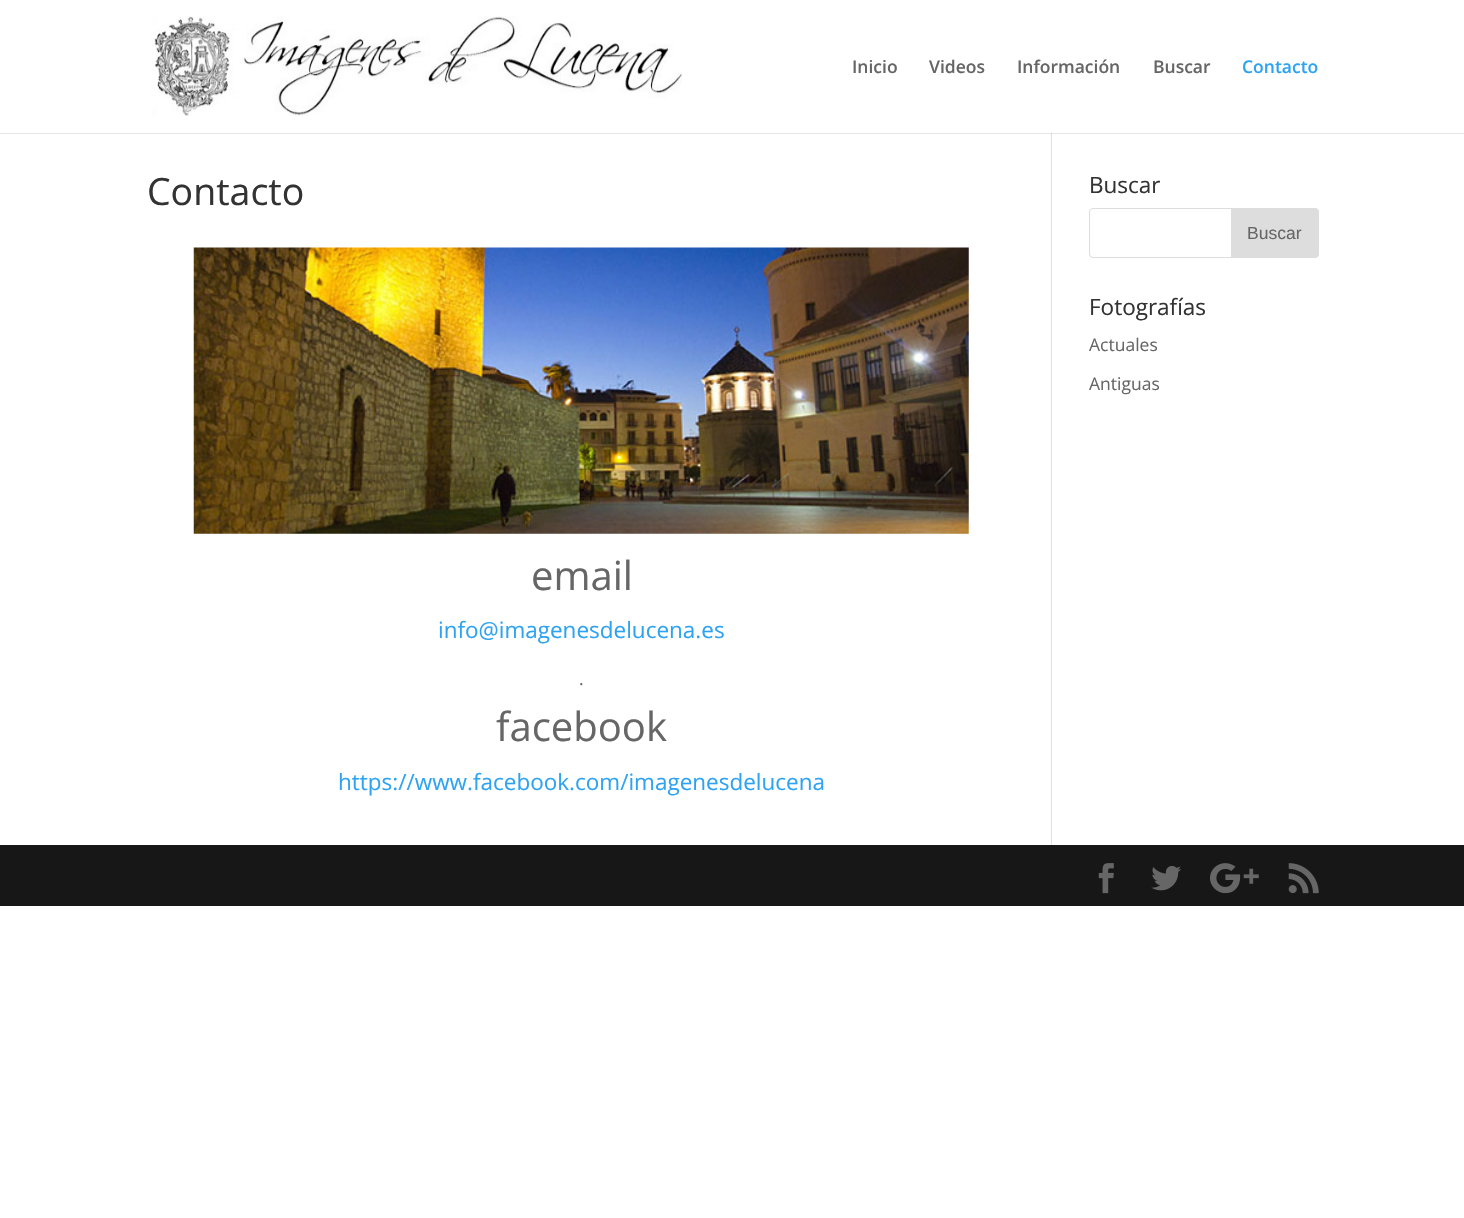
void draw(SkCanvas* canvas) {
    SkPaint paint;
    paint.setAntiAlias(true);
    canvas->clear(0xFFFFFFFF);
    paint.setColor(0xFFE6E6E6);
    canvas->drawRect(SkRect::MakeXYWH(0, 133, 1464, 1), paint);
    paint.setColor(0xFFCBCBCB);
    canvas->drawRect(SkRect::MakeXYWH(1051, 132, 1, 2), paint);
    paint.setColor(0xFFFFFFFF);
    canvas->drawRect(SkRect::MakeXYWH(1051, 132, 1, 1), paint);
    canvas->drawImageRect(SkImages::DeferredFromEncodedData(SkData::MakeFromFileName("img1.png")), SkRect::MakeXYWH(151, 16, 531, 100), SkSamplingOptions());
    SkFont font1(fontMgr->matchFamilyStyle("Open Sans", SkFontStyle(600, SkFontStyle::kNormal_Width, SkFontStyle::kUpright_Slant)), 17.5f);
    font1.setSubpixel(true);
    paint.setColor(0xFF666666);
    canvas->drawString("Inicio", 852, 73, font1, paint);
    canvas->drawString("Videos", 929, 73, font1, paint);
    canvas->drawString("Información", 1017, 73, font1, paint);
    canvas->drawString("Buscar", 1153, 73, font1, paint);
    paint.setColor(0xFF2EA3F2);
    canvas->drawString("Contacto", 1242, 73, font1, paint);
    paint.setColor(0xFFE2E2E2);
    canvas->drawRect(SkRect::MakeXYWH(1051, 134, 1, 711), paint);
    SkFont font2(fontMgr->matchFamilyStyle("Open Sans", SkFontStyle::Normal()), 37.5f);
    font2.setSubpixel(true);
    paint.setColor(0xFF333333);
    canvas->drawString("Contacto", 147, 205, font2, paint);
    canvas->drawImageRect(SkImages::DeferredFromEncodedData(SkData::MakeFromFileName("img2.png")), SkRect::MakeXYWH(193, 247, 776, 287), SkSamplingOptions());
    SkFont font3(fontMgr->matchFamilyStyle("Open Sans", SkFontStyle::Normal()), 40);
    font3.setSubpixel(true);
    paint.setColor(0xFF666666);
    canvas->drawString("email", 531, 590, font3, paint);
    SkFont font4(fontMgr->matchFamilyStyle("Open Sans", SkFontStyle::Normal()), 22.5f);
    font4.setSubpixel(true);
    paint.setColor(0xFF2EA3F2);
    canvas->drawString("info@imagenesdelucena.es", 438, 638, font4, paint);
    SkFont font5(fontMgr->matchFamilyStyle("Open Sans", SkFontStyle::Normal()), 17.5f);
    font5.setSubpixel(true);
    paint.setColor(0xFF666666);
    canvas->drawString(".", 579, 685, font5, paint);
    canvas->drawString("facebook", 496, 741, font3, paint);
    paint.setColor(0xFF2EA3F2);
    canvas->drawString("https://www.facebook.com/imagenesdelucena", 338, 790, font4, paint);
    paint.setColor(0xFF333333);
    canvas->drawString("Buscar", 1089, 193, font4, paint);
    paint.setStyle(SkPaint::kStroke_Style);
    paint.setStrokeWidth(1);
    paint.setColor(0xFFDDDDDD);
    canvas->drawRoundRect(SkRect::MakeXYWH(1089.5f, 208.5f, 229, 49), 3.5f, 3.5f, paint);
    paint.setStyle(SkPaint::kFill_Style);
    canvas->drawPath(SkPathBuilder().moveTo(1231.5f, 208.5f).lineTo(1315, 208.5f).cubicTo(1317, 208.5f, 1318.5f, 210, 1318.5f, 212).lineTo(1318.5f, 254).cubicTo(1318.5f, 256, 1317, 257.5f, 1315, 257.5f).lineTo(1231.5f, 257.5f).close().detach(), paint);
    paint.setStyle(SkPaint::kStroke_Style);
    canvas->drawPath(SkPathBuilder().moveTo(1231.5f, 208.5f).lineTo(1315, 208.5f).cubicTo(1317, 208.5f, 1318.5f, 210, 1318.5f, 212).lineTo(1318.5f, 254).cubicTo(1318.5f, 256, 1317, 257.5f, 1315, 257.5f).lineTo(1231.5f, 257.5f).close().detach(), paint);
    SkFont font6(fontMgr->matchFamilyStyle("Liberation Sans", SkFontStyle::Normal()), 17.5f);
    font6.setSubpixel(true);
    paint.setStyle(SkPaint::kFill_Style);
    paint.setColor(0xFF666666);
    canvas->drawString("Buscar", 1247, 239, font6, paint);
    paint.setColor(0xFF333333);
    canvas->drawString("Fotografías", 1089, 315, font4, paint);
    paint.setColor(0xFF666666);
    canvas->drawString("Actuales", 1089, 351, font5, paint);
    canvas->drawString("Antiguas", 1089, 390, font5, paint);
    paint.setColor(0xFF171717);
    canvas->drawRect(SkRect::MakeXYWH(0, 845, 1464, 61), paint);
    canvas->drawImageRect(SkImages::DeferredFromEncodedData(SkData::MakeFromFileName("img3.png")), SkRect::MakeXYWH(1098, 863, 16, 31), SkSamplingOptions());
    canvas->drawImageRect(SkImages::DeferredFromEncodedData(SkData::MakeFromFileName("img4.png")), SkRect::MakeXYWH(1151, 866, 30, 25), SkSamplingOptions());
    canvas->drawImageRect(SkImages::DeferredFromEncodedData(SkData::MakeFromFileName("img5.png")), SkRect::MakeXYWH(1210, 863, 49, 31), SkSamplingOptions());
    canvas->drawImageRect(SkImages::DeferredFromEncodedData(SkData::MakeFromFileName("img6.png")), SkRect::MakeXYWH(1288, 863, 31, 31), SkSamplingOptions());
}
